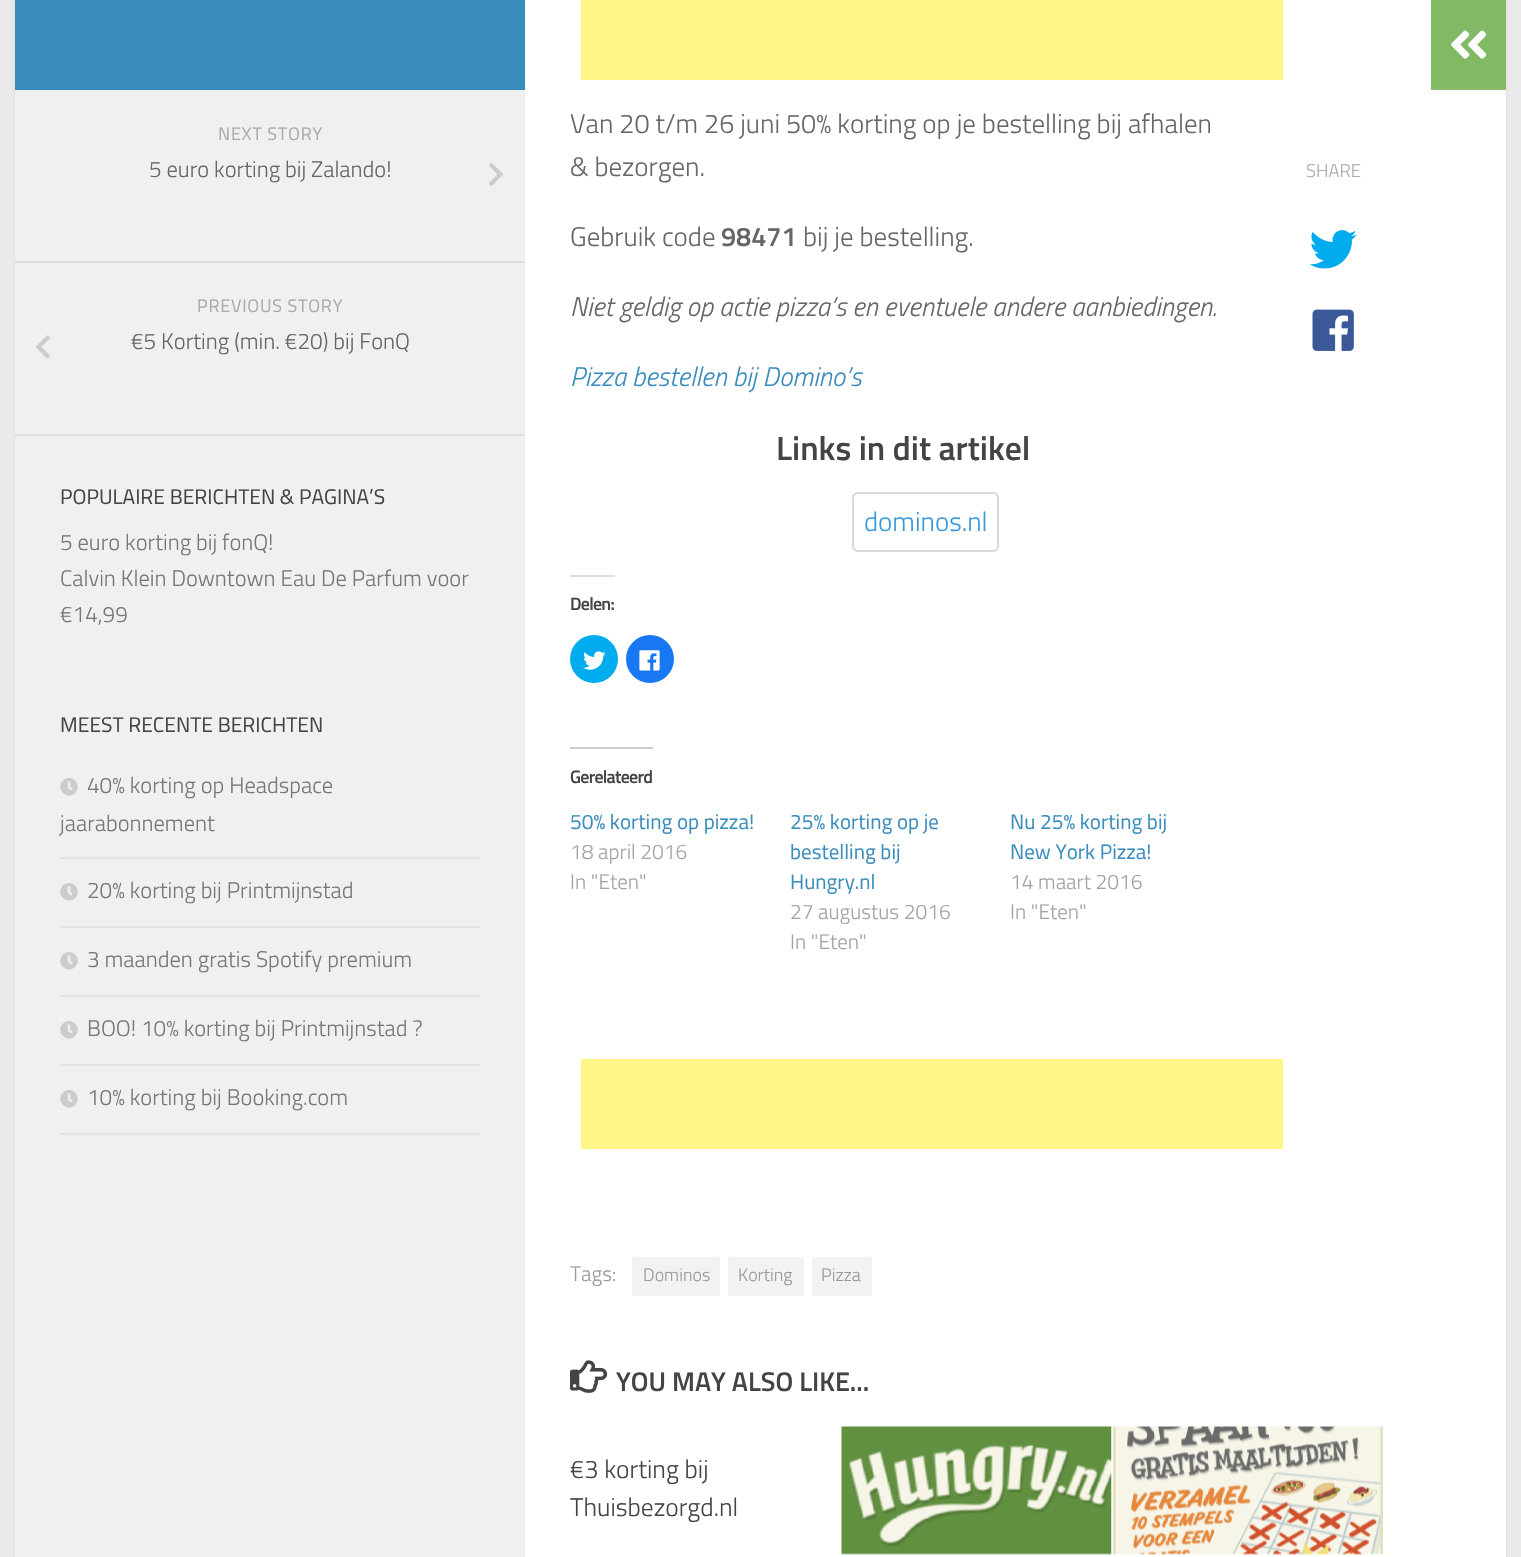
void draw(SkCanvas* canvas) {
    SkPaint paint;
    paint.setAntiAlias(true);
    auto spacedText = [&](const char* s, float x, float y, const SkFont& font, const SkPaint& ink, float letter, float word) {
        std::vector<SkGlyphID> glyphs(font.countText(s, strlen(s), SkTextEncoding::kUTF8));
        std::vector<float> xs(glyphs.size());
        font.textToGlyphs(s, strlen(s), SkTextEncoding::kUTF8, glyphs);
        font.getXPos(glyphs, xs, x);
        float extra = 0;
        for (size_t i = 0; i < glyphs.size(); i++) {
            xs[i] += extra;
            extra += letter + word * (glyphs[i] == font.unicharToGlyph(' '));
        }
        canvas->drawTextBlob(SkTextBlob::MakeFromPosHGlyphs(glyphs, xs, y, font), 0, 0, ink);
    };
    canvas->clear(0xFFEAEAEA);
    paint.setColor(0x1A000000);
    paint.setMaskFilter(SkMaskFilter::MakeBlur(kNormal_SkBlurStyle, 1));
    canvas->drawRect(SkRect::MakeXYWH(15, -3, 1491, 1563), paint);
    paint.setMaskFilter(nullptr);
    paint.setColor(0xFFFFFFFF);
    canvas->drawRect(SkRect::MakeXYWH(525, 0, 981, 1557), paint);
    paint.setColor(0xFFF0F0F0);
    canvas->drawRect(SkRect::MakeXYWH(15, 92, 510, 1465), paint);
    paint.setColor(0xFF82B965);
    canvas->drawRect(SkRect::MakeXYWH(1431, 0, 75, 89), paint);
    paint.setColor(0xFF8FC074);
    canvas->drawRect(SkRect::MakeXYWH(1431, 89, 75, 1), paint);
    canvas->drawImageRect(SkImages::DeferredFromEncodedData(SkData::MakeFromFileName("img1.png")), SkRect::MakeXYWH(1451, 30, 36, 29), SkSamplingOptions());
    paint.setColor(0xFF3B8DBD);
    canvas->drawRect(SkRect::MakeXYWH(15, 0, 510, 90), paint);
    paint.setColor(0xFFEEEEEE);
    canvas->drawRect(SkRect::MakeXYWH(15, 90, 510, 2), paint);
    paint.setColor(0xFFDDDDDD);
    canvas->drawRect(SkRect::MakeXYWH(15, 261, 510, 2), paint);
    SkFont font1(fontMgr->matchFamilyStyle("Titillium", SkFontStyle::Normal()), 18);
    font1.setSubpixel(true);
    paint.setColor(0xFFAAAAAA);
    spacedText("NEXT STORY", 218, 140, font1, paint, 0.75f, 0);
    SkFont font2(fontMgr->matchFamilyStyle("Titillium", SkFontStyle(300, SkFontStyle::kNormal_Width, SkFontStyle::kUpright_Slant)), 22.5f);
    font2.setSubpixel(true);
    paint.setColor(0xFF666666);
    canvas->drawString("5 euro korting bij Zalando!", 149, 177, font2, paint);
    canvas->drawImageRect(SkImages::DeferredFromEncodedData(SkData::MakeFromFileName("img2.png")), SkRect::MakeXYWH(489, 163, 14, 23), SkSamplingOptions());
    paint.setColor(0xFFDDDDDD);
    canvas->drawRect(SkRect::MakeXYWH(15, 434, 510, 2), paint);
    paint.setColor(0xFFAAAAAA);
    spacedText("PREVIOUS STORY", 197, 312, font1, paint, 0.75f, 0);
    canvas->drawImageRect(SkImages::DeferredFromEncodedData(SkData::MakeFromFileName("img3.png")), SkRect::MakeXYWH(36, 335, 14, 24), SkSamplingOptions());
    paint.setColor(0xFF666666);
    canvas->drawString("€5 Korting (min. €20) bij FonQ", 131, 349, font2, paint);
    SkFont font3(fontMgr->matchFamilyStyle("Titillium", SkFontStyle::Normal()), 21.1f);
    font3.setSubpixel(true);
    paint.setColor(0xFF444444);
    canvas->drawString("POPULAIRE BERICHTEN & PAGINA’S", 60, 504, font3, paint);
    paint.setColor(0xFF777777);
    canvas->drawString("5 euro korting bij fonQ!", 60, 550, font2, paint);
    canvas->drawString("Calvin Klein Downtown Eau De Parfum voor", 60, 586, font2, paint);
    canvas->drawString("€14,99", 60, 622, font2, paint);
    paint.setColor(0xFF444444);
    canvas->drawString("MEEST RECENTE BERICHTEN", 60, 732, font3, paint);
    paint.setColor(0xFFE4E4E4);
    canvas->drawRect(SkRect::MakeXYWH(60, 857, 420, 2), paint);
    canvas->drawImageRect(SkImages::DeferredFromEncodedData(SkData::MakeFromFileName("img4.png")), SkRect::MakeXYWH(60, 778, 18, 18), SkSamplingOptions());
    paint.setColor(0xFF777777);
    canvas->drawString("40% korting op Headspace", 87, 793, font2, paint);
    canvas->drawString("jaarabonnement", 60, 831, font2, paint);
    paint.setColor(0xFFE4E4E4);
    canvas->drawRect(SkRect::MakeXYWH(60, 926, 420, 2), paint);
    canvas->drawImageRect(SkImages::DeferredFromEncodedData(SkData::MakeFromFileName("img4.png")), SkRect::MakeXYWH(60, 883, 18, 18), SkSamplingOptions());
    paint.setColor(0xFF777777);
    canvas->drawString("20% korting bij Printmijnstad", 87, 898, font2, paint);
    paint.setColor(0xFFE4E4E4);
    canvas->drawRect(SkRect::MakeXYWH(60, 995, 420, 2), paint);
    canvas->drawImageRect(SkImages::DeferredFromEncodedData(SkData::MakeFromFileName("img4.png")), SkRect::MakeXYWH(60, 952, 18, 18), SkSamplingOptions());
    paint.setColor(0xFF777777);
    canvas->drawString("3 maanden gratis Spotify premium", 87, 967, font2, paint);
    paint.setColor(0xFFE4E4E4);
    canvas->drawRect(SkRect::MakeXYWH(60, 1064, 420, 2), paint);
    canvas->drawImageRect(SkImages::DeferredFromEncodedData(SkData::MakeFromFileName("img4.png")), SkRect::MakeXYWH(60, 1021, 18, 18), SkSamplingOptions());
    paint.setColor(0xFF777777);
    canvas->drawString("BOO! 10% korting bij Printmijnstad ?", 87, 1036, font2, paint);
    paint.setColor(0xFFE4E4E4);
    canvas->drawRect(SkRect::MakeXYWH(60, 1133, 420, 2), paint);
    canvas->drawImageRect(SkImages::DeferredFromEncodedData(SkData::MakeFromFileName("img4.png")), SkRect::MakeXYWH(60, 1090, 18, 18), SkSamplingOptions());
    paint.setColor(0xFF777777);
    canvas->drawString("10% korting bij Booking.com", 87, 1105, font2, paint);
    paint.setColor(0xFFFFF486);
    canvas->drawRect(SkRect::MakeXYWH(581, 0, 702, 80), paint);
    SkFont font4(fontMgr->matchFamilyStyle("Titillium", SkFontStyle(300, SkFontStyle::kNormal_Width, SkFontStyle::kUpright_Slant)), 27);
    font4.setSubpixel(true);
    paint.setColor(0xFF666666);
    canvas->drawString("Van 20 t/m 26 juni 50% korting op je bestelling bij afhalen", 570, 133, font4, paint);
    canvas->drawString("& bezorgen.", 570, 176, font4, paint);
    canvas->drawString("Gebruik code", 570, 246, font4, paint);
    SkFont font5(fontMgr->matchFamilyStyle("Titillium", SkFontStyle(600, SkFontStyle::kNormal_Width, SkFontStyle::kUpright_Slant)), 27);
    font5.setSubpixel(true);
    canvas->drawString("98471", 721, 246, font5, paint);
    canvas->drawString("bij je bestelling.", 803, 246, font4, paint);
    SkFont font6(fontMgr->matchFamilyStyle("Titillium", SkFontStyle(300, SkFontStyle::kNormal_Width, SkFontStyle::kItalic_Slant)), 27);
    font6.setSubpixel(true);
    canvas->drawString("Niet geldig op actie pizza’s en eventuele andere aanbiedingen.", 570, 316, font6, paint);
    paint.setColor(0xFF3B8DBD);
    canvas->drawString("Pizza bestellen bij Domino’s", 570, 386, font6, paint);
    SkFont font7(fontMgr->matchFamilyStyle("Titillium", SkFontStyle(600, SkFontStyle::kNormal_Width, SkFontStyle::kUpright_Slant)), 33.75f);
    font7.setSubpixel(true);
    paint.setColor(0xFF444444);
    canvas->drawString("Links in dit artikel", 776, 460, font7, paint);
    paint.setStyle(SkPaint::kStroke_Style);
    paint.setStrokeWidth(2);
    paint.setColor(0xFFD6DAE0);
    canvas->drawRoundRect(SkRect::MakeXYWH(853, 493, 145, 58), 5, 5, paint);
    paint.setStyle(SkPaint::kFill_Style);
    paint.setColor(0xFF3699DC);
    canvas->drawString("dominos.nl", 864, 531, font4, paint);
    paint.setColor(0xFFDDDDDD);
    canvas->drawRect(SkRect::MakeXYWH(570, 575, 45, 2), paint);
    SkFont font8(fontMgr->matchFamilyStyle("Titillium", SkFontStyle(600, SkFontStyle::kNormal_Width, SkFontStyle::kUpright_Slant)), 18);
    font8.setSubpixel(true);
    paint.setColor(0xFF444444);
    spacedText("Delen:", 570, 610, font8, paint, -0.75f, 0);
    paint.setColor(0xFF00ACEE);
    canvas->drawCircle(594, 659, 24, paint);
    canvas->drawImageRect(SkImages::DeferredFromEncodedData(SkData::MakeFromFileName("img5.png")), SkRect::MakeXYWH(583, 651, 23, 19), SkSamplingOptions());
    paint.setColor(0xFF1877F2);
    canvas->drawCircle(650, 659, 24, paint);
    canvas->drawImageRect(SkImages::DeferredFromEncodedData(SkData::MakeFromFileName("img6.png")), SkRect::MakeXYWH(639, 650, 21, 21), SkSamplingOptions());
    paint.setColor(0xFFCCCCCC);
    canvas->drawRect(SkRect::MakeXYWH(570, 747, 83, 2), paint);
    paint.setColor(0xFF444444);
    spacedText("Gerelateerd", 570, 783, font8, paint, -0.75f, 0);
    SkFont font9(fontMgr->matchFamilyStyle("Titillium", SkFontStyle::Normal()), 21);
    font9.setSubpixel(true);
    paint.setColor(0xFF3B8DBD);
    canvas->drawString("50% korting op pizza!", 570, 829, font9, paint);
    SkFont font10(fontMgr->matchFamilyStyle("Titillium", SkFontStyle(300, SkFontStyle::kNormal_Width, SkFontStyle::kUpright_Slant)), 21);
    font10.setSubpixel(true);
    paint.setColor(0xFFA3A3A3);
    canvas->drawString("18 april 2016", 570, 859, font10, paint);
    canvas->drawString("In \"Eten\"", 570, 889, font10, paint);
    paint.setColor(0xFF3B8DBD);
    canvas->drawString("25% korting op je", 790, 829, font9, paint);
    canvas->drawString("bestelling bij", 790, 859, font9, paint);
    canvas->drawString("Hungry.nl", 790, 889, font9, paint);
    paint.setColor(0xFFA3A3A3);
    canvas->drawString("27 augustus 2016", 790, 919, font10, paint);
    canvas->drawString("In \"Eten\"", 790, 949, font10, paint);
    paint.setColor(0xFF3B8DBD);
    canvas->drawString("Nu 25% korting bij", 1010, 829, font9, paint);
    canvas->drawString("New York Pizza!", 1010, 859, font9, paint);
    paint.setColor(0xFFA3A3A3);
    canvas->drawString("14 maart 2016", 1010, 889, font10, paint);
    canvas->drawString("In \"Eten\"", 1010, 919, font10, paint);
    paint.setColor(0xFFFFF486);
    canvas->drawRect(SkRect::MakeXYWH(581, 1059, 702, 90), paint);
    SkFont font11(fontMgr->matchFamilyStyle("Titillium", SkFontStyle(300, SkFontStyle::kNormal_Width, SkFontStyle::kUpright_Slant)), 18.5f);
    font11.setSubpixel(true);
    paint.setColor(0xFFAAAAAA);
    canvas->drawString("SHARE", 1306, 177, font11, paint);
    canvas->drawImageRect(SkImages::DeferredFromEncodedData(SkData::MakeFromFileName("img7.png")), SkRect::MakeXYWH(1309, 230, 48, 39), SkSamplingOptions());
    canvas->drawImageRect(SkImages::DeferredFromEncodedData(SkData::MakeFromFileName("img8.png")), SkRect::MakeXYWH(1312, 309, 42, 42), SkSamplingOptions());
    paint.setColor(0xFF999999);
    canvas->drawString("Tags:", 570, 1281, font10, paint);
    paint.setColor(0xFFF2F2F2);
    canvas->drawRoundRect(SkRect::MakeXYWH(632, 1257, 88, 39), 3, 3, paint);
    SkFont font12(fontMgr->matchFamilyStyle("Titillium", SkFontStyle(300, SkFontStyle::kNormal_Width, SkFontStyle::kUpright_Slant)), 18);
    font12.setSubpixel(true);
    paint.setColor(0xFF999999);
    canvas->drawString("Dominos", 643, 1281, font12, paint);
    paint.setColor(0xFFF2F2F2);
    canvas->drawRoundRect(SkRect::MakeXYWH(728, 1257, 76, 39), 3, 3, paint);
    paint.setColor(0xFF999999);
    canvas->drawString("Korting", 738, 1281, font12, paint);
    paint.setColor(0xFFF2F2F2);
    canvas->drawRoundRect(SkRect::MakeXYWH(812, 1257, 60, 39), 3, 3, paint);
    paint.setColor(0xFF999999);
    canvas->drawString("Pizza", 821, 1281, font12, paint);
    canvas->drawImageRect(SkImages::DeferredFromEncodedData(SkData::MakeFromFileName("img9.png")), SkRect::MakeXYWH(570, 1360, 38, 33), SkSamplingOptions());
    paint.setColor(0xFF444444);
    canvas->drawString("YOU MAY ALSO LIKE...", 616, 1391, font5, paint);
    SkFont font13(fontMgr->matchFamilyStyle("Titillium", SkFontStyle(300, SkFontStyle::kNormal_Width, SkFontStyle::kUpright_Slant)), 25.5f);
    font13.setSubpixel(true);
    canvas->drawString("€3 korting bij", 570, 1478, font13, paint);
    canvas->drawString("Thuisbezorgd.nl", 570, 1516, font13, paint);
    canvas->drawImageRect(SkImages::DeferredFromEncodedData(SkData::MakeFromFileName("img10.png")), SkRect::MakeXYWH(841, 1426, 271, 129), SkSamplingOptions());
    canvas->drawImageRect(SkImages::DeferredFromEncodedData(SkData::MakeFromFileName("img11.png")), SkRect::MakeXYWH(1113, 1426, 270, 129), SkSamplingOptions());
}
